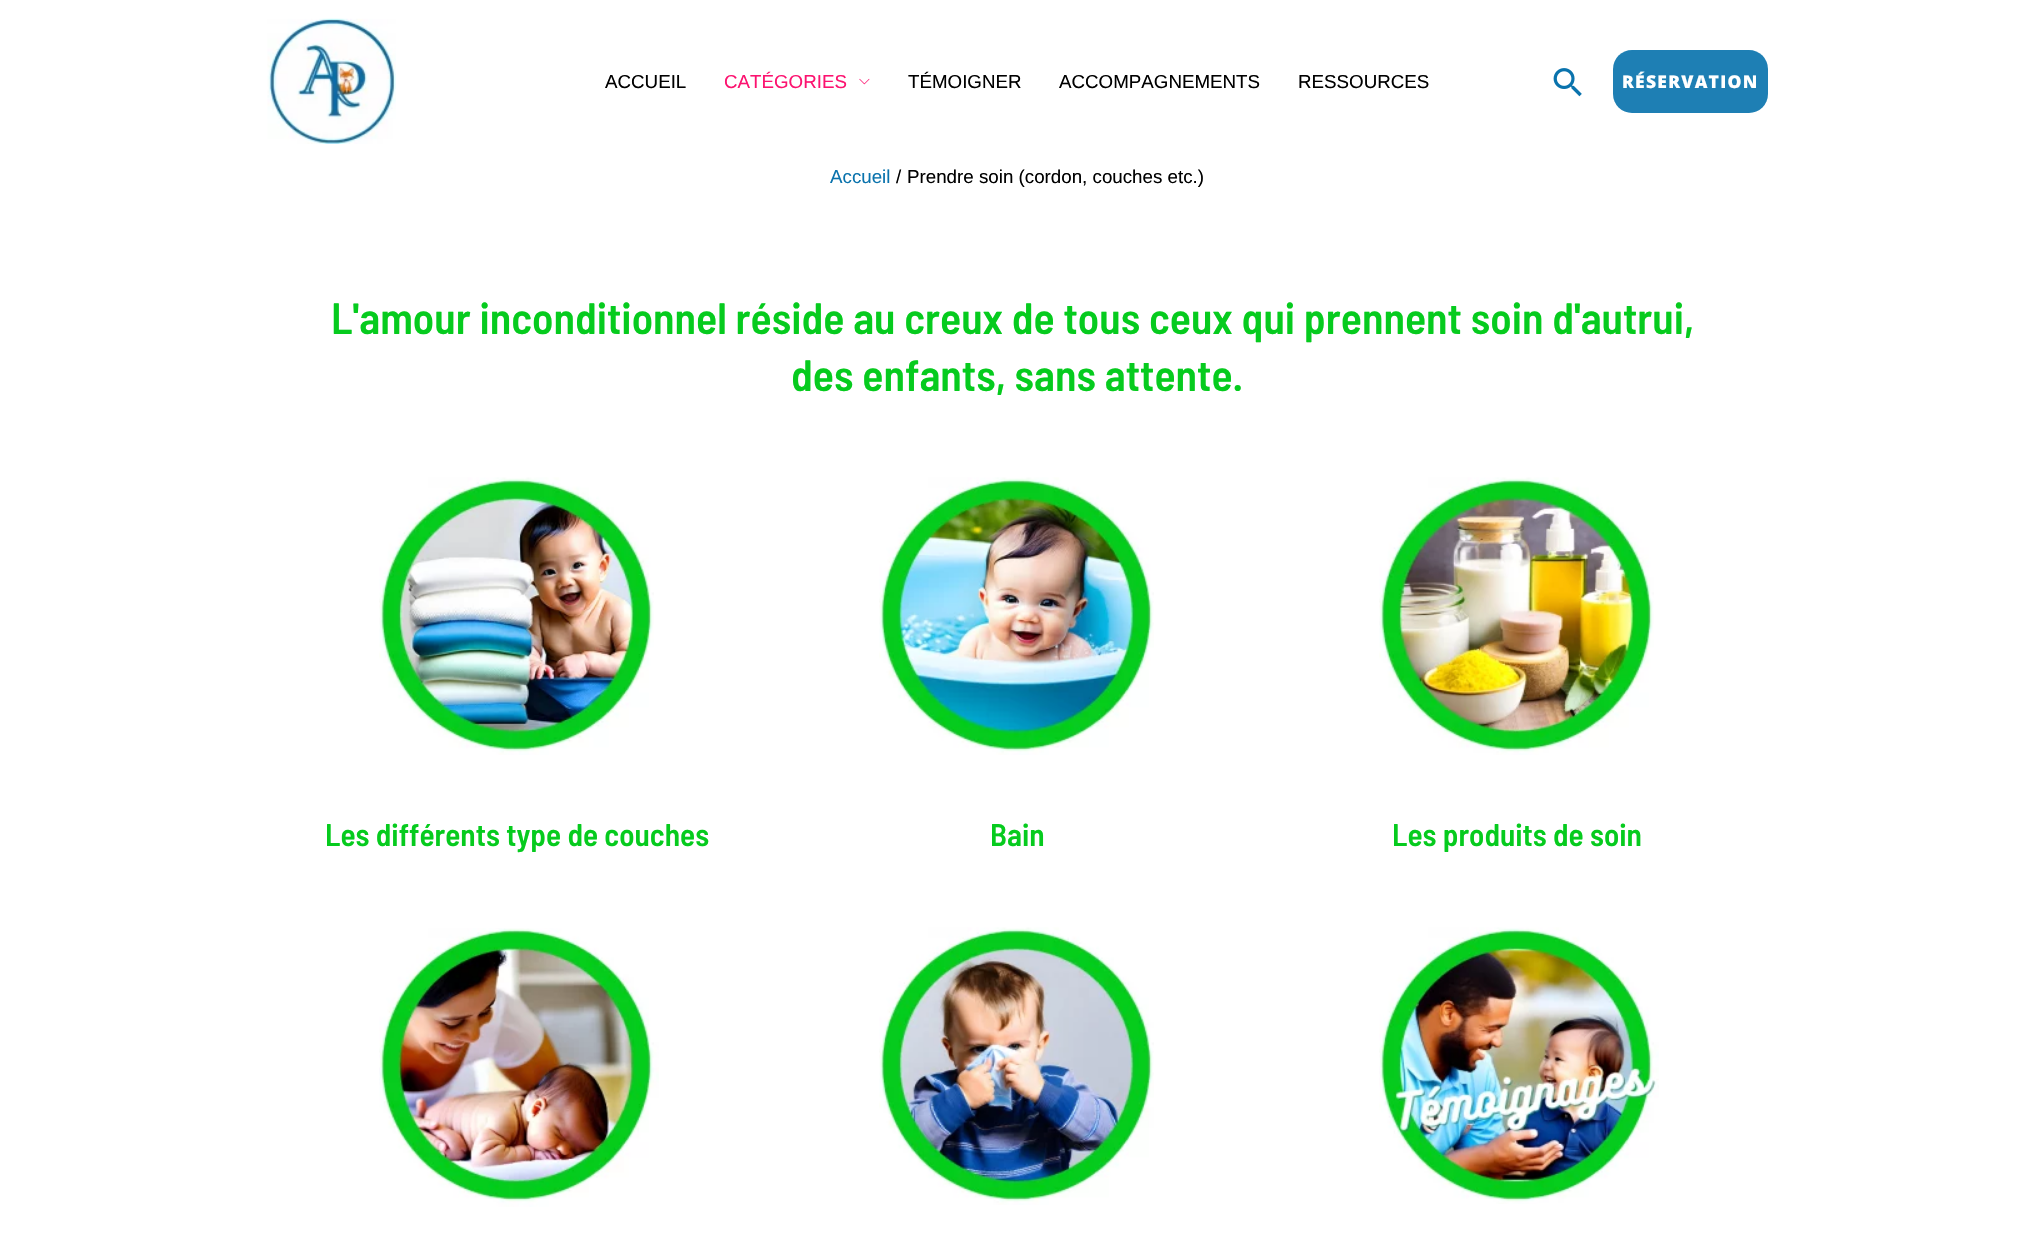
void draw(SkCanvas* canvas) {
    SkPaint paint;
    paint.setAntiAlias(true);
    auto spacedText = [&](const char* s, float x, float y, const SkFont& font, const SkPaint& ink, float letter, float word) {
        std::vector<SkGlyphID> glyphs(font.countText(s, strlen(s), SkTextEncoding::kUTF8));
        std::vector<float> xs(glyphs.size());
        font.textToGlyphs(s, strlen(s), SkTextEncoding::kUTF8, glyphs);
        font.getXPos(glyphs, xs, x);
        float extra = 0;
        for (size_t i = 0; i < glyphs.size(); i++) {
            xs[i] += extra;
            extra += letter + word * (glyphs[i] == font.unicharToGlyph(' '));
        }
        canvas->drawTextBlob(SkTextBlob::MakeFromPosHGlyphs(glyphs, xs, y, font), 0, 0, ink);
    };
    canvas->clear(0xFFFFFFFF);
    canvas->drawImageRect(SkImages::DeferredFromEncodedData(SkData::MakeFromFileName("img1.png")), SkRect::MakeXYWH(267, 18, 129, 126), SkSamplingOptions());
    SkFont font1(fontMgr->matchFamilyStyle("Liberation Sans", SkFontStyle::Normal()), 18.75f);
    font1.setSubpixel(true);
    paint.setColor(0xFF000000);
    canvas->drawString("ACCUEIL", 605, 88, font1, paint);
    paint.setColor(0xFFFC1370);
    canvas->drawString("CATÉGORIES", 724, 88, font1, paint);
    canvas->drawImageRect(SkImages::DeferredFromEncodedData(SkData::MakeFromFileName("img2.png")), SkRect::MakeXYWH(859, 78, 11, 7), SkSamplingOptions());
    paint.setColor(0xFF000000);
    canvas->drawString("TÉMOIGNER", 908, 88, font1, paint);
    canvas->drawString("ACCOMPAGNEMENTS", 1059, 88, font1, paint);
    canvas->drawString("RESSOURCES", 1298, 88, font1, paint);
    canvas->drawImageRect(SkImages::DeferredFromEncodedData(SkData::MakeFromFileName("img3.png")), SkRect::MakeXYWH(1553, 68, 29, 29), SkSamplingOptions());
    paint.setColor(0xFF1E7FB4);
    canvas->drawRoundRect(SkRect::MakeXYWH(1613, 50, 155, 63), 19, 19, paint);
    SkFont font2(fontMgr->matchFamilyStyle("Open Sans", SkFontStyle(800, SkFontStyle::kNormal_Width, SkFontStyle::kUpright_Slant)), 17.5f);
    font2.setSubpixel(true);
    paint.setColor(0xFFFFFFFF);
    spacedText("RÉSERVATION", 1622, 88, font2, paint, 1.25f, 0);
    paint.setColor(0xFF0A73AD);
    canvas->drawString("Accueil", 830, 183, font1, paint);
    paint.setColor(0xFF000000);
    canvas->drawString("/", 896, 183, font1, paint);
    canvas->drawString("Prendre soin (cordon, couches etc.)", 907, 183, font1, paint);
    SkFont font3(fontMgr->matchFamilyStyle("Barlow Semi Condensed", SkFontStyle(600, SkFontStyle::kNormal_Width, SkFontStyle::kUpright_Slant)), 43.75f);
    font3.setSubpixel(true);
    paint.setColor(0xFF06CB1E);
    canvas->drawString("L'amour inconditionnel réside au creux de tous ceux qui prennent soin d'autrui,", 331, 334, font3, paint);
    canvas->drawString("des enfants, sans attente.", 791, 391, font3, paint);
    canvas->drawImageRect(SkImages::DeferredFromEncodedData(SkData::MakeFromFileName("img4.png")), SkRect::MakeXYWH(379, 477, 275, 278), SkSamplingOptions());
    SkFont font4(fontMgr->matchFamilyStyle("Barlow Semi Condensed", SkFontStyle(600, SkFontStyle::kNormal_Width, SkFontStyle::kUpright_Slant)), 31.25f);
    font4.setSubpixel(true);
    canvas->drawString("Les différents type de couches", 325, 846, font4, paint);
    canvas->drawImageRect(SkImages::DeferredFromEncodedData(SkData::MakeFromFileName("img5.png")), SkRect::MakeXYWH(879, 477, 275, 278), SkSamplingOptions());
    canvas->drawString("Bain", 990, 846, font4, paint);
    canvas->drawImageRect(SkImages::DeferredFromEncodedData(SkData::MakeFromFileName("img6.png")), SkRect::MakeXYWH(1379, 477, 275, 278), SkSamplingOptions());
    canvas->drawString("Les produits de soin", 1392, 846, font4, paint);
    canvas->drawImageRect(SkImages::DeferredFromEncodedData(SkData::MakeFromFileName("img7.png")), SkRect::MakeXYWH(379, 928, 280, 279), SkSamplingOptions());
    canvas->drawImageRect(SkImages::DeferredFromEncodedData(SkData::MakeFromFileName("img8.png")), SkRect::MakeXYWH(879, 927, 275, 278), SkSamplingOptions());
    canvas->drawImageRect(SkImages::DeferredFromEncodedData(SkData::MakeFromFileName("img9.png")), SkRect::MakeXYWH(1379, 927, 280, 277), SkSamplingOptions());
}
